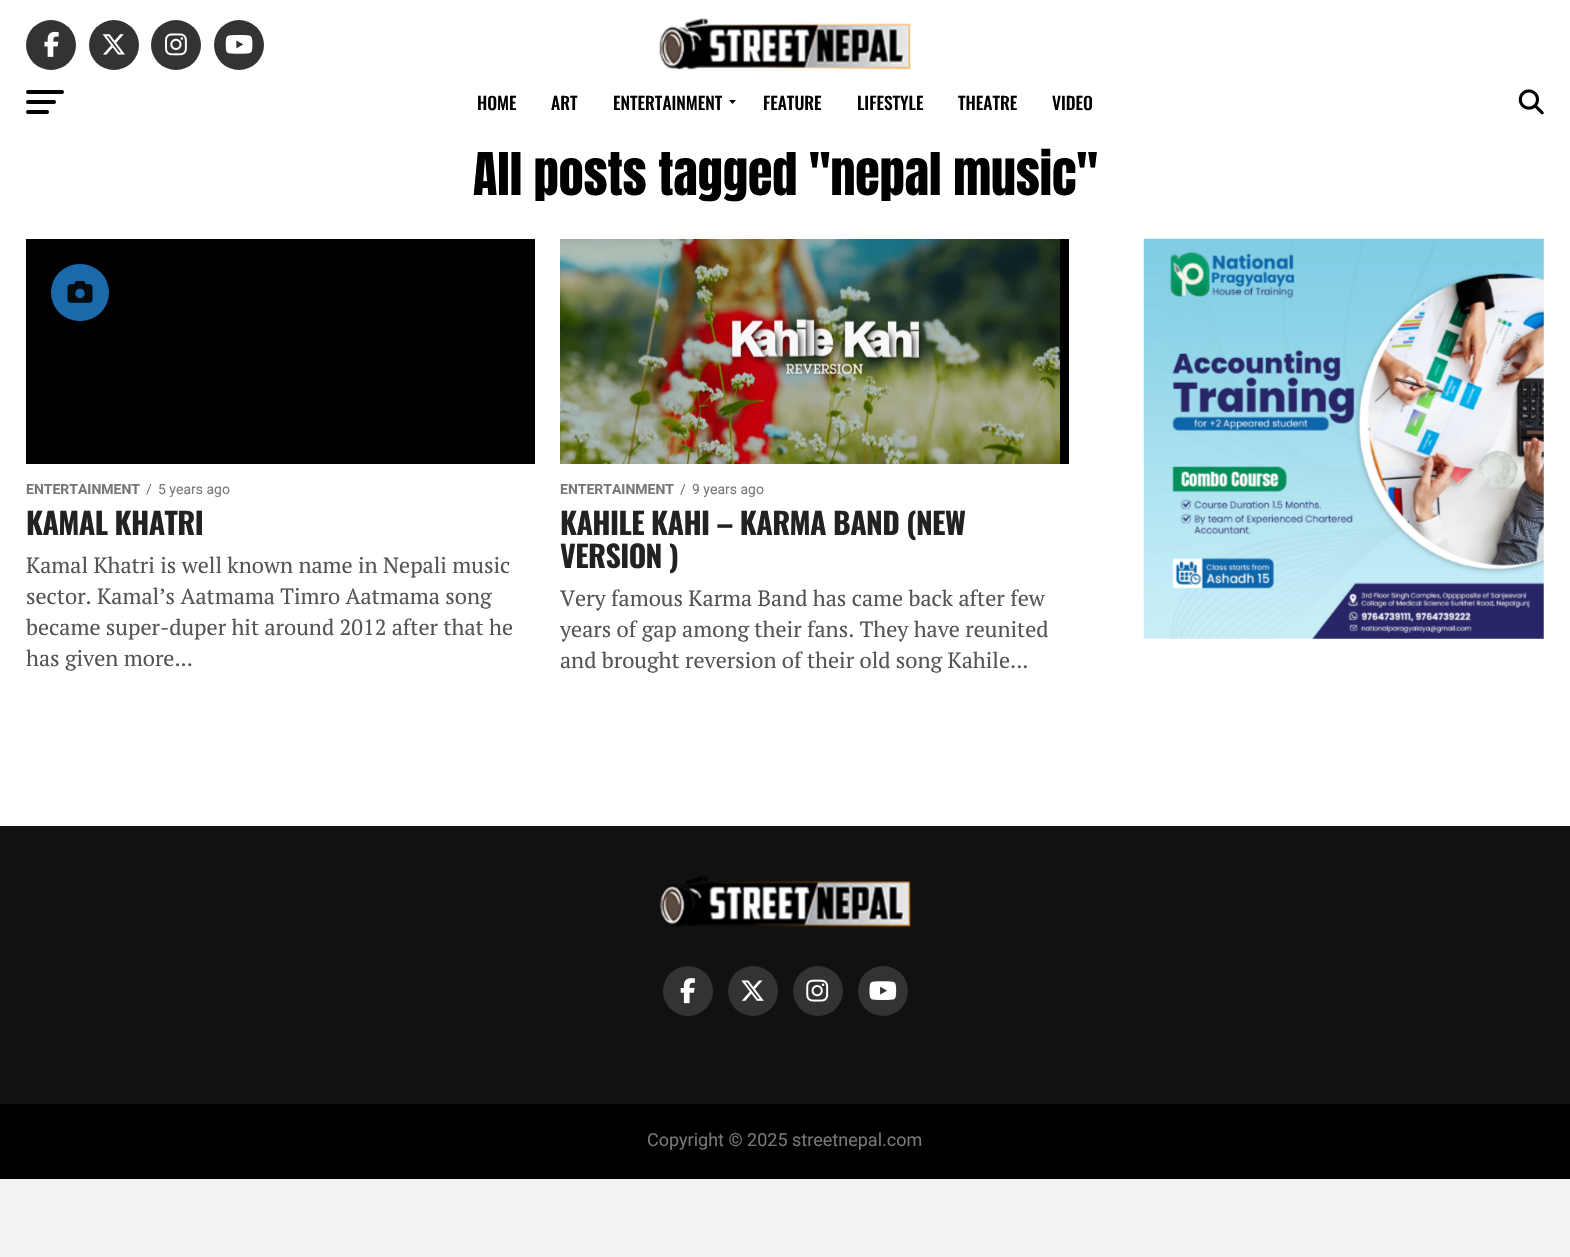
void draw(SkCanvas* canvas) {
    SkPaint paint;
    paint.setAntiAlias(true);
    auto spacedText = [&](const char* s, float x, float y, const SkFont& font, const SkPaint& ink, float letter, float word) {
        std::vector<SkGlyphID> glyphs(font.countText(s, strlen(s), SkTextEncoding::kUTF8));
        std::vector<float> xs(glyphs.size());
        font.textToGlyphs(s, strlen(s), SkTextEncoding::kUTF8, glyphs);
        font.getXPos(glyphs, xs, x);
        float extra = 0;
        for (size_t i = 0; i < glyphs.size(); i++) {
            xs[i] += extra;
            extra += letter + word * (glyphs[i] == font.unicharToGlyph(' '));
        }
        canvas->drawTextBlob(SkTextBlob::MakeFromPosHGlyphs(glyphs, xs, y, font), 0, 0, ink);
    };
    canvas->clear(0xFFF2F2F2);
    paint.setColor(0xFFFFFFFF);
    canvas->drawRect(SkRect::MakeXYWH(0, 0, 1570, 826), paint);
    paint.setColor(0xFF333333);
    canvas->drawCircle(51, 45, 25, paint);
    canvas->drawImageRect(SkImages::DeferredFromEncodedData(SkData::MakeFromFileName("img1.png")), SkRect::MakeXYWH(44, 31, 15, 26), SkSamplingOptions());
    canvas->drawCircle(114, 45, 25, paint);
    canvas->drawImageRect(SkImages::DeferredFromEncodedData(SkData::MakeFromFileName("img2.png")), SkRect::MakeXYWH(102, 34, 23, 21), SkSamplingOptions());
    canvas->drawCircle(176, 45, 25, paint);
    canvas->drawImageRect(SkImages::DeferredFromEncodedData(SkData::MakeFromFileName("img3.png")), SkRect::MakeXYWH(165, 33, 22, 23), SkSamplingOptions());
    canvas->drawCircle(239, 45, 25, paint);
    canvas->drawImageRect(SkImages::DeferredFromEncodedData(SkData::MakeFromFileName("img4.png")), SkRect::MakeXYWH(225, 35, 28, 19), SkSamplingOptions());
    canvas->drawImageRect(SkImages::DeferredFromEncodedData(SkData::MakeFromFileName("img5.png")), SkRect::MakeXYWH(659, 18, 252, 52), SkSamplingOptions());
    paint.setColor(0xFF000000);
    canvas->drawRoundRect(SkRect::MakeXYWH(26, 90, 38, 4), 2, 2, paint);
    canvas->drawRoundRect(SkRect::MakeXYWH(26, 100, 30, 4), 2, 2, paint);
    canvas->drawRoundRect(SkRect::MakeXYWH(26, 110, 23, 4), 2, 2, paint);
    SkFont font1(fontMgr->matchFamilyStyle("Oswald", SkFontStyle(500, SkFontStyle::kNormal_Width, SkFontStyle::kUpright_Slant)), 17.5f);
    font1.setSubpixel(true);
    canvas->drawString("HOME", 477, 110, font1, paint);
    canvas->drawString("ART", 551, 110, font1, paint);
    canvas->drawString("ENTERTAINMENT", 613, 110, font1, paint);
    canvas->drawPath(SkPathBuilder().moveTo(729, 100).lineTo(736, 100).lineTo(732.5f, 104).close().detach(), paint);
    canvas->drawString("FEATURE", 763, 110, font1, paint);
    canvas->drawString("LIFESTYLE", 857, 110, font1, paint);
    canvas->drawString("THEATRE", 958, 110, font1, paint);
    canvas->drawString("VIDEO", 1052, 110, font1, paint);
    canvas->drawImageRect(SkImages::DeferredFromEncodedData(SkData::MakeFromFileName("img6.png")), SkRect::MakeXYWH(1518, 89, 26, 26), SkSamplingOptions());
    SkFont font2(fontMgr->matchFamilyStyle("Anton", SkFontStyle::Normal()), 50);
    font2.setSubpixel(true);
    canvas->drawString("All posts tagged \"nepal music\"", 473, 195, font2, paint);
    canvas->drawRect(SkRect::MakeXYWH(26, 239, 509, 225), paint);
    paint.setColor(0xFF1B68AB);
    canvas->drawRoundRect(SkRect::MakeXYWH(51, 264, 58, 57), 28.5f, 28.5f, paint);
    canvas->drawImageRect(SkImages::DeferredFromEncodedData(SkData::MakeFromFileName("img7.png")), SkRect::MakeXYWH(67, 280, 26, 23), SkSamplingOptions());
    SkFont font3(fontMgr->matchFamilyStyle("Roboto", SkFontStyle::Bold()), 14);
    font3.setSubpixel(true);
    paint.setColor(0xFF777777);
    canvas->drawString("ENTERTAINMENT", 26, 494, font3, paint);
    SkFont font4(fontMgr->matchFamilyStyle("Roboto", SkFontStyle::Normal()), 14);
    font4.setSubpixel(true);
    canvas->drawString("/", 146, 494, font4, paint);
    canvas->drawString("5 years ago", 158, 494, font4, paint);
    SkFont font5(fontMgr->matchFamilyStyle("Oswald", SkFontStyle::Bold()), 30);
    font5.setSubpixel(true);
    paint.setColor(0xFF222222);
    spacedText("KAMAL KHATRI", 26, 535, font5, paint, -0.6f, 0);
    SkFont font6(fontMgr->matchFamilyStyle("PT Serif", SkFontStyle::Normal()), 22);
    font6.setSubpixel(true);
    paint.setColor(0xFF555555);
    canvas->drawString("Kamal Khatri is well known name in Nepali music", 26, 573, font6, paint);
    canvas->drawString("sector. Kamal’s Aatmama Timro Aatmama song", 26, 604, font6, paint);
    canvas->drawString("became super-duper hit around 2012 after that he", 26, 635, font6, paint);
    canvas->drawString("has given more...", 26, 666, font6, paint);
    paint.setColor(0xFF000000);
    canvas->drawRect(SkRect::MakeXYWH(1060, 239, 9, 225), paint);
    canvas->drawImageRect(SkImages::DeferredFromEncodedData(SkData::MakeFromFileName("img8.png")), SkRect::MakeXYWH(560, 239, 500, 225), SkSamplingOptions());
    paint.setColor(0xFF777777);
    canvas->drawString("ENTERTAINMENT", 560, 494, font3, paint);
    canvas->drawString("/", 680, 494, font4, paint);
    canvas->drawString("9 years ago", 692, 494, font4, paint);
    paint.setColor(0xFF222222);
    spacedText("KAHILE KAHI – KARMA BAND (NEW", 560, 535, font5, paint, -0.6f, 0);
    spacedText("VERSION )", 560, 568, font5, paint, -0.6f, 0);
    paint.setColor(0xFF555555);
    canvas->drawString("Very famous Karma Band has came back after few", 560, 606, font6, paint);
    canvas->drawString("years of gap among their fans. They have reunited", 560, 637, font6, paint);
    canvas->drawString("and brought reversion of their old song Kahile...", 560, 668, font6, paint);
    canvas->drawImageRect(SkImages::DeferredFromEncodedData(SkData::MakeFromFileName("img9.png")), SkRect::MakeXYWH(1143, 238, 401, 401), SkSamplingOptions());
    paint.setColor(0xFF111111);
    canvas->drawRect(SkRect::MakeXYWH(0, 826, 1570, 278), paint);
    canvas->drawImageRect(SkImages::DeferredFromEncodedData(SkData::MakeFromFileName("img10.png")), SkRect::MakeXYWH(659, 876, 252, 52), SkSamplingOptions());
    paint.setColor(0xFF333333);
    canvas->drawCircle(688, 991, 25, paint);
    canvas->drawImageRect(SkImages::DeferredFromEncodedData(SkData::MakeFromFileName("img11.png")), SkRect::MakeXYWH(680, 978, 15, 26), SkSamplingOptions());
    canvas->drawCircle(753, 991, 25, paint);
    canvas->drawImageRect(SkImages::DeferredFromEncodedData(SkData::MakeFromFileName("img12.png")), SkRect::MakeXYWH(741, 980, 23, 21), SkSamplingOptions());
    canvas->drawCircle(818, 991, 25, paint);
    canvas->drawImageRect(SkImages::DeferredFromEncodedData(SkData::MakeFromFileName("img13.png")), SkRect::MakeXYWH(806, 979, 23, 23), SkSamplingOptions());
    canvas->drawCircle(883, 991, 25, paint);
    canvas->drawImageRect(SkImages::DeferredFromEncodedData(SkData::MakeFromFileName("img14.png")), SkRect::MakeXYWH(869, 981, 28, 19), SkSamplingOptions());
    paint.setColor(0xFF000000);
    canvas->drawRect(SkRect::MakeXYWH(0, 1104, 1570, 75), paint);
    SkFont font7(fontMgr->matchFamilyStyle("Roboto", SkFontStyle::Normal()), 18);
    font7.setSubpixel(true);
    paint.setColor(0xFF777777);
    canvas->drawString("Copyright © 2025 streetnepal.com", 647, 1146, font7, paint);
}
